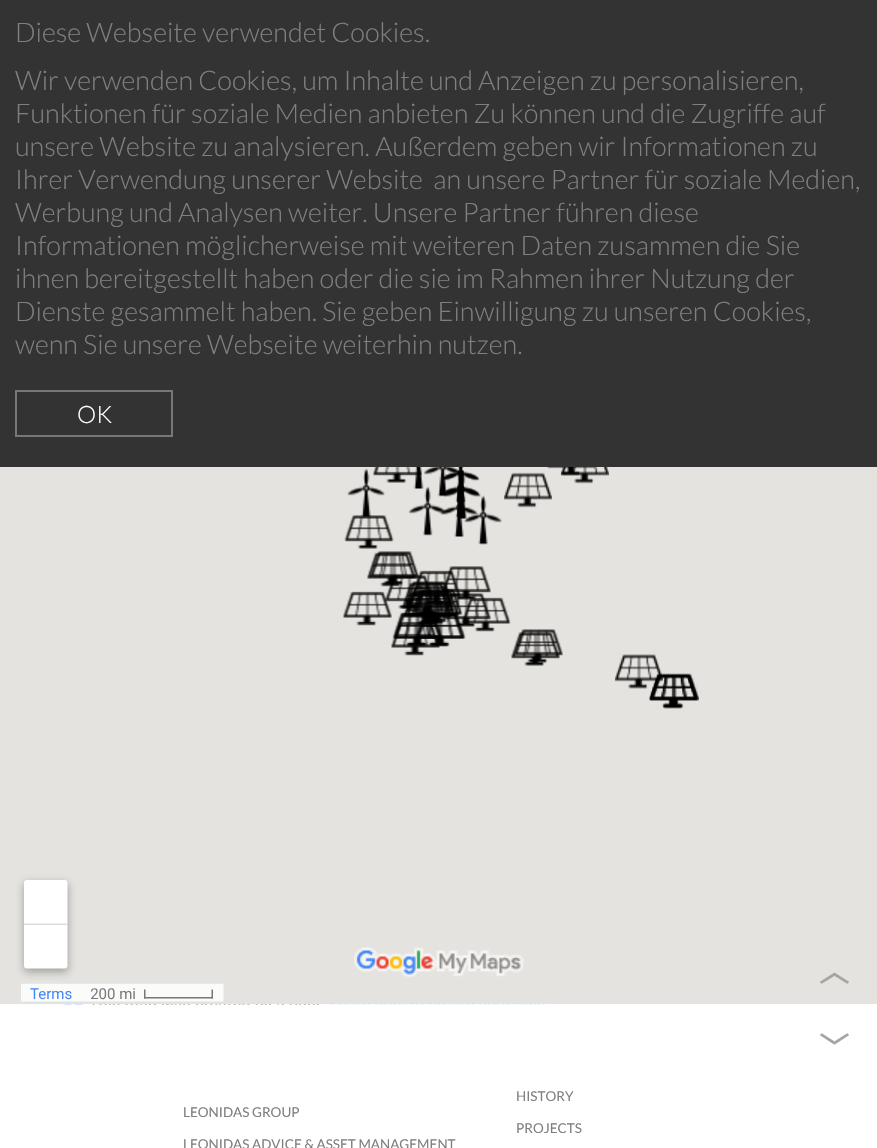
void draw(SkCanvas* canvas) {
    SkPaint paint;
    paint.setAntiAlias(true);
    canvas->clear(0xFFFFFFFF);
    paint.setColor(0xFF333333);
    canvas->drawRect(SkRect::MakeXYWH(0, 0, 877, 467), paint);
    SkFont font1(fontMgr->matchFamilyStyle("Lato", SkFontStyle(300, SkFontStyle::kNormal_Width, SkFontStyle::kUpright_Slant)), 27);
    font1.setSubpixel(true);
    paint.setColor(0xFF7F7F82);
    canvas->drawString("Diese Webseite verwendet Cookies.", 15, 42, font1, paint);
    canvas->drawString("Wir verwenden Cookies, um Inhalte und Anzeigen zu personalisieren,", 15, 90, font1, paint);
    canvas->drawString("Funktionen für soziale Medien anbieten Zu können und die Zugriffe auf", 15, 123, font1, paint);
    canvas->drawString("unsere Website zu analysieren. Außerdem geben wir Informationen zu", 15, 156, font1, paint);
    canvas->drawString("Ihrer Verwendung unserer Website  an unsere Partner für soziale Medien,", 15, 189, font1, paint);
    canvas->drawString("Werbung und Analysen weiter. Unsere Partner führen diese", 15, 222, font1, paint);
    canvas->drawString("Informationen möglicherweise mit weiteren Daten zusammen die Sie", 15, 255, font1, paint);
    canvas->drawString("ihnen bereitgestellt haben oder die sie im Rahmen ihrer Nutzung der", 15, 288, font1, paint);
    canvas->drawString("Dienste gesammelt haben. Sie geben Einwilligung zu unseren Cookies,", 15, 321, font1, paint);
    canvas->drawString("wenn Sie unsere Webseite weiterhin nutzen.", 15, 354, font1, paint);
    paint.setStyle(SkPaint::kStroke_Style);
    paint.setStrokeWidth(2);
    paint.setColor(0xFF777777);
    canvas->drawRect(SkRect::MakeXYWH(16, 391, 156, 45), paint);
    SkFont font2(fontMgr->matchFamilyStyle("Lato", SkFontStyle(300, SkFontStyle::kNormal_Width, SkFontStyle::kUpright_Slant)), 24);
    font2.setSubpixel(true);
    paint.setStyle(SkPaint::kFill_Style);
    paint.setColor(0xFFFFFFFF);
    canvas->drawString("OK", 77, 423, font2, paint);
    canvas->drawImageRect(SkImages::DeferredFromEncodedData(SkData::MakeFromFileName("img1.png")), SkRect::MakeXYWH(0, 467, 877, 538), SkSamplingOptions());
    SkFont font3(fontMgr->matchFamilyStyle("Lato", SkFontStyle(300, SkFontStyle::kNormal_Width, SkFontStyle::kUpright_Slant)), 75);
    font3.setSubpixel(true);
    paint.setColor(0xFFA5A5A5);
    canvas->save();
    canvas->rotate(90, 815, 967);
    canvas->drawString("‹", 815, 967, font3, paint);
    canvas->restore();
    canvas->save();
    canvas->rotate(90, 815, 1027);
    canvas->drawString("›", 815, 1027, font3, paint);
    canvas->restore();
    SkFont font4(fontMgr->matchFamilyStyle("Lato", SkFontStyle::Normal()), 13.5f);
    font4.setSubpixel(true);
    paint.setColor(0xFF7F7F82);
    canvas->drawString("LEONIDAS GROUP", 183, 1117, font4, paint);
    canvas->drawString("LEONIDAS ADVICE & ASSET MANAGEMENT", 183, 1149, font4, paint);
    canvas->drawString("HISTORY", 516, 1101, font4, paint);
    canvas->drawString("PROJECTS", 516, 1133, font4, paint);
}
